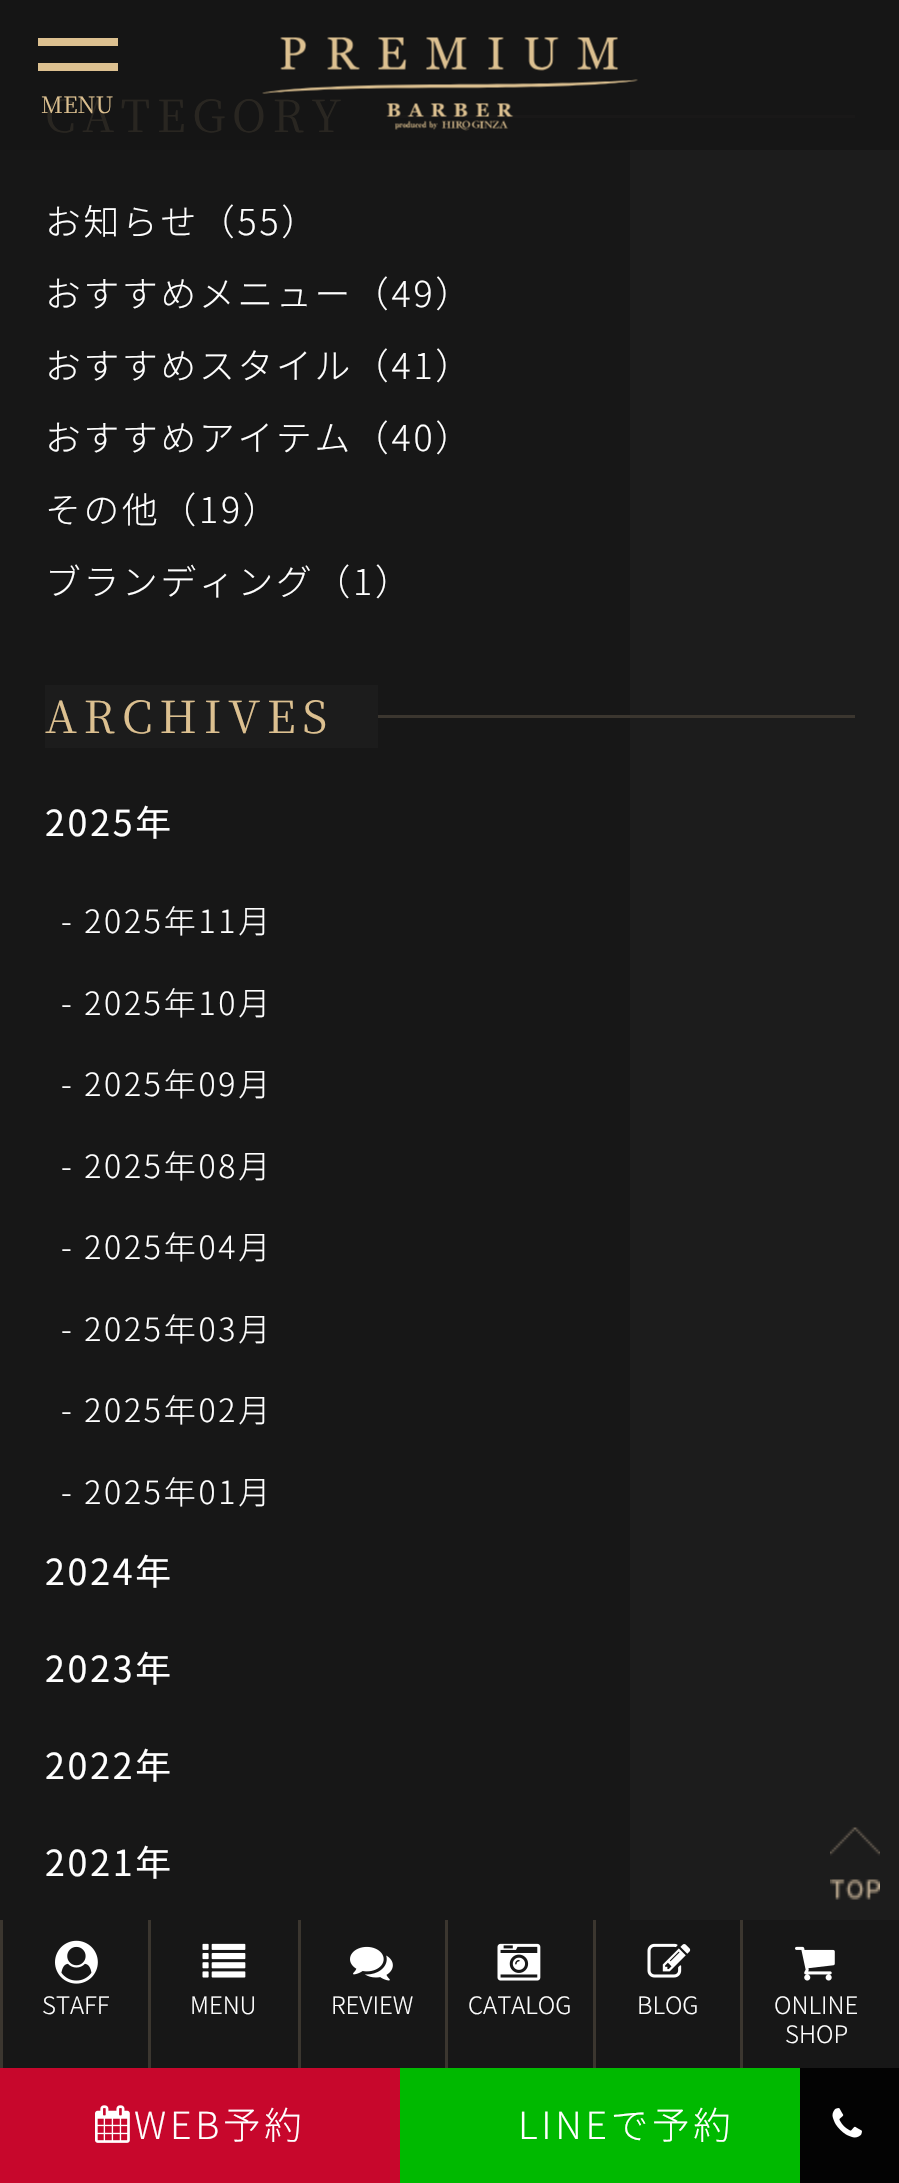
void draw(SkCanvas* canvas) {
    SkPaint paint;
    paint.setAntiAlias(true);
    auto spacedText = [&](const char* s, float x, float y, const SkFont& font, const SkPaint& ink, float letter, float word) {
        std::vector<SkGlyphID> glyphs(font.countText(s, strlen(s), SkTextEncoding::kUTF8));
        std::vector<float> xs(glyphs.size());
        font.textToGlyphs(s, strlen(s), SkTextEncoding::kUTF8, glyphs);
        font.getXPos(glyphs, xs, x);
        float extra = 0;
        for (size_t i = 0; i < glyphs.size(); i++) {
            xs[i] += extra;
            extra += letter + word * (glyphs[i] == font.unicharToGlyph(' '));
        }
        canvas->drawTextBlob(SkTextBlob::MakeFromPosHGlyphs(glyphs, xs, y, font), 0, 0, ink);
    };
    canvas->clear(0xFF1C1C1C);
    paint.setColor(0xFF161616);
    canvas->drawRect(SkRect::MakeXYWH(630, 0, 269, 150), paint);
    paint.setColor(0xFF151515);
    canvas->drawRect(SkRect::MakeXYWH(0, 0, 630, 150), paint);
    paint.setColor(0xFFDCC090);
    canvas->drawRect(SkRect::MakeXYWH(38, 63, 80, 8), paint);
    canvas->drawRect(SkRect::MakeXYWH(38, 38, 80, 8), paint);
    SkFont font1(fontMgr->matchFamilyStyle("Noto Serif JP", SkFontStyle::Normal()), 44.25f);
    font1.setSubpixel(true);
    paint.setColor(0xFF292621);
    spacedText("CATEGORY", 45, 132, font1, paint, 6.75f, 0);
    SkFont font2(fontMgr->matchFamilyStyle("Noto Serif JP", SkFontStyle::Normal()), 22.5f);
    font2.setSubpixel(true);
    paint.setColor(0xFFDCC090);
    canvas->drawString("MENU", 41, 113, font2, paint);
    paint.setColor(0xFF191818);
    canvas->drawRect(SkRect::MakeXYWH(390, 115, 465, 3), paint);
    canvas->drawImageRect(SkImages::DeferredFromEncodedData(SkData::MakeFromFileName("img1.png")), SkRect::MakeXYWH(262, 37, 376, 94), SkSamplingOptions());
    paint.setColor(0xFF171717);
    canvas->drawRect(SkRect::MakeXYWH(0, 150, 630, 1770), paint);
    SkFont font3(fontMgr->matchFamilyStyle("Noto Sans JP", SkFontStyle(300, SkFontStyle::kNormal_Width, SkFontStyle::kUpright_Slant)), 35.75f);
    font3.setSubpixel(true);
    paint.setColor(0xFFFFFFFF);
    spacedText("お知らせ（55）", 45, 235, font3, paint, 2.75f, 0);
    spacedText("おすすめメニュー（49）", 45, 307, font3, paint, 2.75f, 0);
    spacedText("おすすめスタイル（41）", 45, 379, font3, paint, 2.75f, 0);
    spacedText("おすすめアイテム（40）", 45, 451, font3, paint, 2.75f, 0);
    spacedText("その他（19）", 45, 523, font3, paint, 2.75f, 0);
    spacedText("ブランディング（1）", 45, 595, font3, paint, 2.75f, 0);
    paint.setColor(0xFF3B362F);
    canvas->drawRect(SkRect::MakeXYWH(378, 715, 477, 3), paint);
    paint.setColor(0xFF1C1C1C);
    canvas->drawRect(SkRect::MakeXYWH(45, 685, 333, 63), paint);
    paint.setColor(0xFFDCC090);
    spacedText("ARCHIVES", 45, 733, font1, paint, 6.75f, 0);
    SkFont font4(fontMgr->matchFamilyStyle("Noto Sans JP", SkFontStyle::Normal()), 35.75f);
    font4.setSubpixel(true);
    paint.setColor(0xFFFFFFFF);
    spacedText("2025年", 45, 836, font4, paint, 2.75f, 0);
    SkFont font5(fontMgr->matchFamilyStyle("Noto Sans JP", SkFontStyle(300, SkFontStyle::kNormal_Width, SkFontStyle::kUpright_Slant)), 32);
    font5.setSubpixel(true);
    spacedText("- 2025年11月", 61, 933, font5, paint, 2.75f, 0);
    spacedText("- 2025年10月", 61, 1015, font5, paint, 2.75f, 0);
    spacedText("- 2025年09月", 61, 1096, font5, paint, 2.75f, 0);
    spacedText("- 2025年08月", 61, 1178, font5, paint, 2.75f, 0);
    spacedText("- 2025年04月", 61, 1259, font5, paint, 2.75f, 0);
    spacedText("- 2025年03月", 61, 1341, font5, paint, 2.75f, 0);
    spacedText("- 2025年02月", 61, 1422, font5, paint, 2.75f, 0);
    spacedText("- 2025年01月", 61, 1504, font5, paint, 2.75f, 0);
    spacedText("2024年", 45, 1585, font4, paint, 2.75f, 0);
    spacedText("2023年", 45, 1682, font4, paint, 2.75f, 0);
    spacedText("2022年", 45, 1779, font4, paint, 2.75f, 0);
    spacedText("2021年", 45, 1876, font4, paint, 2.75f, 0);
    canvas->drawImageRect(SkImages::DeferredFromEncodedData(SkData::MakeFromFileName("img2.png")), SkRect::MakeXYWH(830, 1827, 50, 73), SkSamplingOptions());
    paint.setColor(0xFF171717);
    canvas->drawRect(SkRect::MakeXYWH(3, 1920, 896, 148), paint);
    paint.setColor(0xFF3B362F);
    canvas->drawRect(SkRect::MakeXYWH(0, 1920, 3, 148), paint);
    canvas->drawImageRect(SkImages::DeferredFromEncodedData(SkData::MakeFromFileName("img3.png")), SkRect::MakeXYWH(55, 1940, 43, 44), SkSamplingOptions());
    SkFont font6(fontMgr->matchFamilyStyle("Noto Sans JP", SkFontStyle(300, SkFontStyle::kNormal_Width, SkFontStyle::kUpright_Slant)), 24);
    font6.setSubpixel(true);
    paint.setColor(0xFFFFFFFF);
    canvas->drawString("STAFF", 42, 2014, font6, paint);
    paint.setColor(0xFF3B362F);
    canvas->drawRect(SkRect::MakeXYWH(148, 1920, 3, 148), paint);
    canvas->drawImageRect(SkImages::DeferredFromEncodedData(SkData::MakeFromFileName("img4.png")), SkRect::MakeXYWH(202, 1943, 44, 35), SkSamplingOptions());
    paint.setColor(0xFFFFFFFF);
    canvas->drawString("MENU", 190, 2014, font6, paint);
    paint.setColor(0xFF3B362F);
    canvas->drawRect(SkRect::MakeXYWH(298, 1920, 3, 148), paint);
    canvas->drawImageRect(SkImages::DeferredFromEncodedData(SkData::MakeFromFileName("img5.png")), SkRect::MakeXYWH(350, 1946, 43, 35), SkSamplingOptions());
    paint.setColor(0xFFFFFFFF);
    canvas->drawString("REVIEW", 331, 2014, font6, paint);
    paint.setColor(0xFF3B362F);
    canvas->drawRect(SkRect::MakeXYWH(445, 1920, 3, 148), paint);
    canvas->drawImageRect(SkImages::DeferredFromEncodedData(SkData::MakeFromFileName("img6.png")), SkRect::MakeXYWH(497, 1943, 44, 38), SkSamplingOptions());
    paint.setColor(0xFFFFFFFF);
    canvas->drawString("CATALOG", 468, 2014, font6, paint);
    paint.setColor(0xFF3B362F);
    canvas->drawRect(SkRect::MakeXYWH(593, 1920, 3, 148), paint);
    canvas->drawImageRect(SkImages::DeferredFromEncodedData(SkData::MakeFromFileName("img7.png")), SkRect::MakeXYWH(647, 1943, 44, 35), SkSamplingOptions());
    paint.setColor(0xFFFFFFFF);
    canvas->drawString("BLOG", 637, 2014, font6, paint);
    paint.setColor(0xFF3B362F);
    canvas->drawRect(SkRect::MakeXYWH(740, 1920, 3, 148), paint);
    canvas->drawImageRect(SkImages::DeferredFromEncodedData(SkData::MakeFromFileName("img8.png")), SkRect::MakeXYWH(795, 1946, 40, 35), SkSamplingOptions());
    paint.setColor(0xFFFFFFFF);
    canvas->drawString("ONLINE", 774, 2014, font6, paint);
    canvas->drawString("SHOP", 785, 2043, font6, paint);
    paint.setColor(0xFFC7072C);
    canvas->drawRect(SkRect::MakeXYWH(0, 2068, 400, 115), paint);
    canvas->drawImageRect(SkImages::DeferredFromEncodedData(SkData::MakeFromFileName("img9.png")), SkRect::MakeXYWH(95, 2105, 35, 38), SkSamplingOptions());
    SkFont font7(fontMgr->matchFamilyStyle("Noto Sans JP", SkFontStyle(300, SkFontStyle::kNormal_Width, SkFontStyle::kUpright_Slant)), 37.5f);
    font7.setSubpixel(true);
    paint.setColor(0xFFFFFFFF);
    spacedText("WEB予約", 134, 2139, font7, paint, 3.75f, 0);
    paint.setColor(0xFF00B900);
    canvas->drawRect(SkRect::MakeXYWH(400, 2068, 400, 115), paint);
    paint.setColor(0xFFFFFFFF);
    spacedText("LINEで予約", 518, 2139, font7, paint, 3.75f, 0);
    paint.setColor(0xFF030303);
    canvas->drawRect(SkRect::MakeXYWH(800, 2068, 99, 115), paint);
    canvas->drawImageRect(SkImages::DeferredFromEncodedData(SkData::MakeFromFileName("img10.png")), SkRect::MakeXYWH(832, 2108, 30, 30), SkSamplingOptions());
}
